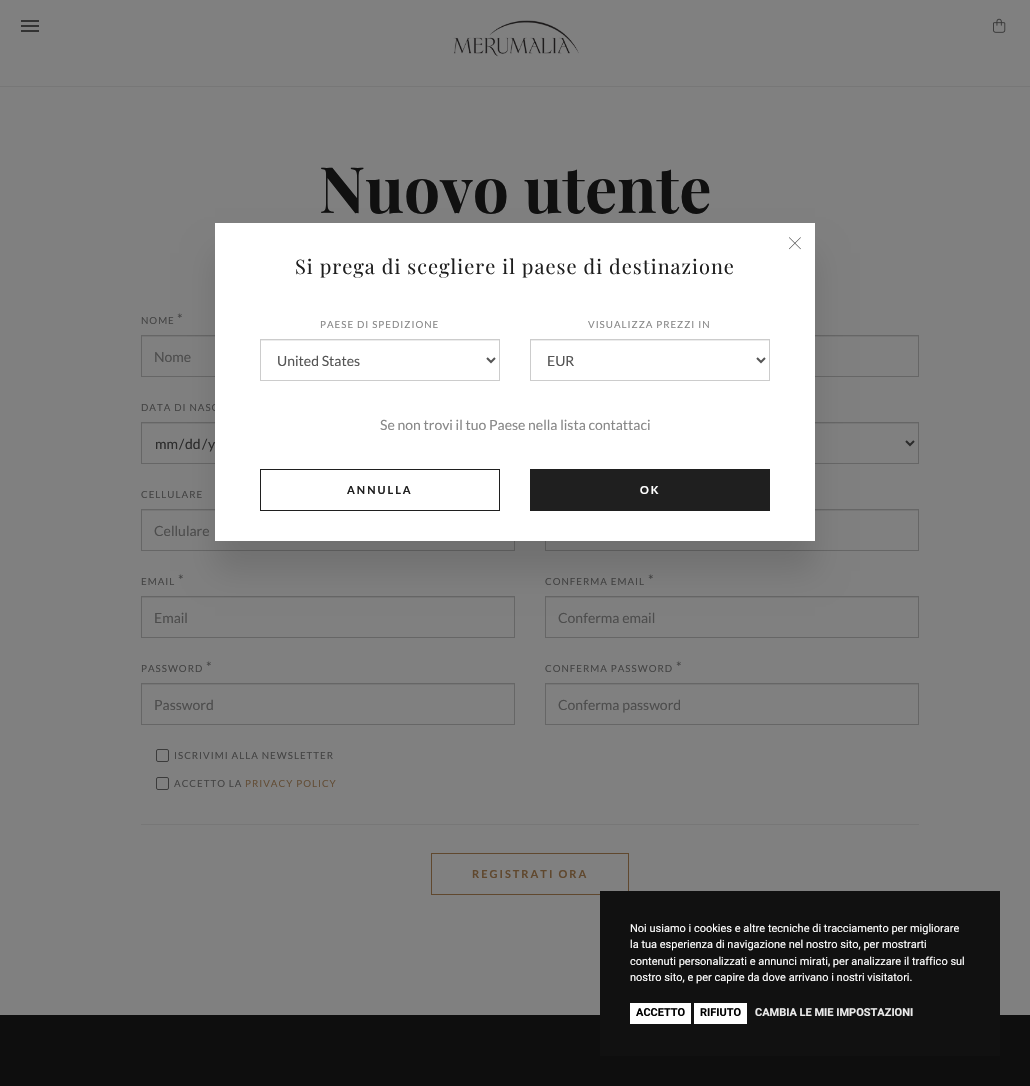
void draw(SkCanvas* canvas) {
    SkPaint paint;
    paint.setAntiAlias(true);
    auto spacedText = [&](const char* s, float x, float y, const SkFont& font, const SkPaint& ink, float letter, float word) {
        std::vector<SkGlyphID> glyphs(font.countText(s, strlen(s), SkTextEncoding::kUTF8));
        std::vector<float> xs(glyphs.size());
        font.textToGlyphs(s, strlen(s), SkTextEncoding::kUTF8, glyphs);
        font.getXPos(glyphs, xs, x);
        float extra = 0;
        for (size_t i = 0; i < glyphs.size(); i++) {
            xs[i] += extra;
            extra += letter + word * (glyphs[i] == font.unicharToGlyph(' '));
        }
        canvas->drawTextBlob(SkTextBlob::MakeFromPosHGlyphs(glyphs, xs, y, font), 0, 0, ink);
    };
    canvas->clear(0xFF808080);
    paint.setColor(0xFF333333);
    canvas->drawRect(SkRect::MakeXYWH(21, 25, 18, 2), paint);
    canvas->drawRect(SkRect::MakeXYWH(21, 20, 18, 2), paint);
    canvas->drawRect(SkRect::MakeXYWH(21, 30, 18, 2), paint);
    canvas->drawImageRect(SkImages::DeferredFromEncodedData(SkData::MakeFromFileName("img1.png")), SkRect::MakeXYWH(453, 20, 126, 37), SkSamplingOptions());
    canvas->drawImageRect(SkImages::DeferredFromEncodedData(SkData::MakeFromFileName("img2.png")), SkRect::MakeXYWH(993, 18, 13, 15), SkSamplingOptions());
    paint.setColor(0xFF777777);
    canvas->drawRect(SkRect::MakeXYWH(0, 86, 1030, 1), paint);
    SkFont font1(fontMgr->matchFamilyStyle("Playfair Display", SkFontStyle::Bold()), 64);
    font1.setSubpixel(true);
    paint.setColor(0xFF101010);
    canvas->drawString("Nuovo utente", 319, 213, font1, paint);
    SkFont font2(fontMgr->matchFamilyStyle("Lato", SkFontStyle::Normal()), 14);
    font2.setSubpixel(true);
    paint.setColor(0xFF444444);
    canvas->drawString("*", 177, 324, font2, paint);
    SkFont font3(fontMgr->matchFamilyStyle("Lato", SkFontStyle::Normal()), 9.75f);
    font3.setSubpixel(true);
    spacedText("NOME", 141, 324, font3, paint, 1, 0);
    paint.setColor(0xFF767676);
    canvas->drawRect(SkRect::MakeXYWH(142, 336, 73, 1), paint);
    paint.setStyle(SkPaint::kStroke_Style);
    paint.setStrokeWidth(1);
    paint.setColor(0xFF666666);
    canvas->drawRect(SkRect::MakeXYWH(141.5f, 335.5f, 373, 41), paint);
    paint.setStyle(SkPaint::kFill_Style);
    paint.setColor(0xFF4D4D4D);
    canvas->drawString("Nome", 154, 362, font2, paint);
    paint.setColor(0xFF767676);
    canvas->drawRect(SkRect::MakeXYWH(815, 336, 103, 1), paint);
    paint.setStyle(SkPaint::kStroke_Style);
    paint.setColor(0xFF666666);
    canvas->drawRect(SkRect::MakeXYWH(545.5f, 335.5f, 373, 41), paint);
    paint.setStyle(SkPaint::kFill_Style);
    paint.setColor(0xFF444444);
    spacedText("DATA DI NASC", 141, 411, font3, paint, 1, 0);
    paint.setColor(0xFF767676);
    canvas->drawRect(SkRect::MakeXYWH(142, 423, 73, 1), paint);
    paint.setStyle(SkPaint::kStroke_Style);
    paint.setColor(0xFF666666);
    canvas->drawRect(SkRect::MakeXYWH(141.5f, 422.5f, 373, 41), paint);
    paint.setStyle(SkPaint::kFill_Style);
    paint.setColor(0xFF2B2B2B);
    canvas->drawString("mm", 155, 449, font2, paint);
    canvas->drawString("/", 179, 449, font2, paint);
    canvas->drawString("dd", 185, 449, font2, paint);
    canvas->drawString("/", 202, 449, font2, paint);
    canvas->drawString("y", 208, 449, font2, paint);
    paint.setColor(0xFF767676);
    canvas->drawRect(SkRect::MakeXYWH(815, 423, 103, 1), paint);
    paint.setStyle(SkPaint::kStroke_Style);
    paint.setColor(0xFF666666);
    canvas->drawRect(SkRect::MakeXYWH(545.5f, 422.5f, 373, 41), paint);
    paint.setStrokeWidth(2);
    paint.setColor(0xFF2B2B2B);
    canvas->drawPath(SkPathBuilder().moveTo(906, 441).lineTo(910, 445).lineTo(914, 441).detach(), paint);
    paint.setStyle(SkPaint::kFill_Style);
    paint.setColor(0xFF444444);
    spacedText("CELLULARE", 141, 498, font3, paint, 1, 0);
    paint.setColor(0xFF767676);
    canvas->drawRect(SkRect::MakeXYWH(142, 510, 73, 1), paint);
    paint.setStyle(SkPaint::kStroke_Style);
    paint.setStrokeWidth(1);
    paint.setColor(0xFF666666);
    canvas->drawRect(SkRect::MakeXYWH(141.5f, 509.5f, 373, 41), paint);
    paint.setStyle(SkPaint::kFill_Style);
    paint.setColor(0xFF4D4D4D);
    canvas->drawString("Cellulare", 154, 536, font2, paint);
    paint.setColor(0xFF767676);
    canvas->drawRect(SkRect::MakeXYWH(815, 510, 103, 1), paint);
    paint.setStyle(SkPaint::kStroke_Style);
    paint.setColor(0xFF666666);
    canvas->drawRect(SkRect::MakeXYWH(545.5f, 509.5f, 373, 41), paint);
    paint.setStyle(SkPaint::kFill_Style);
    paint.setColor(0xFF444444);
    canvas->drawString("*", 178, 585, font2, paint);
    spacedText("EMAIL", 141, 585, font3, paint, 1, 0);
    paint.setColor(0xFF767676);
    canvas->drawRect(SkRect::MakeXYWH(142, 597, 372, 1), paint);
    paint.setStyle(SkPaint::kStroke_Style);
    paint.setColor(0xFF666666);
    canvas->drawRect(SkRect::MakeXYWH(141.5f, 596.5f, 373, 41), paint);
    paint.setStyle(SkPaint::kFill_Style);
    paint.setColor(0xFF4D4D4D);
    canvas->drawString("Email", 154, 623, font2, paint);
    paint.setColor(0xFF444444);
    canvas->drawString("*", 648, 585, font2, paint);
    spacedText("CONFERMA EMAIL", 545, 585, font3, paint, 1, 0);
    paint.setColor(0xFF767676);
    canvas->drawRect(SkRect::MakeXYWH(546, 597, 372, 1), paint);
    paint.setStyle(SkPaint::kStroke_Style);
    paint.setColor(0xFF666666);
    canvas->drawRect(SkRect::MakeXYWH(545.5f, 596.5f, 373, 41), paint);
    paint.setStyle(SkPaint::kFill_Style);
    paint.setColor(0xFF4D4D4D);
    canvas->drawString("Conferma email", 558, 623, font2, paint);
    paint.setColor(0xFF444444);
    canvas->drawString("*", 206, 672, font2, paint);
    spacedText("PASSWORD", 141, 672, font3, paint, 1, 0);
    paint.setColor(0xFF767676);
    canvas->drawRect(SkRect::MakeXYWH(142, 684, 372, 1), paint);
    paint.setStyle(SkPaint::kStroke_Style);
    paint.setColor(0xFF666666);
    canvas->drawRect(SkRect::MakeXYWH(141.5f, 683.5f, 373, 41), paint);
    paint.setStyle(SkPaint::kFill_Style);
    paint.setColor(0xFF4D4D4D);
    canvas->drawString("Password", 154, 710, font2, paint);
    paint.setColor(0xFF444444);
    canvas->drawString("*", 676, 672, font2, paint);
    spacedText("CONFERMA PASSWORD", 545, 672, font3, paint, 1, 0);
    paint.setColor(0xFF767676);
    canvas->drawRect(SkRect::MakeXYWH(546, 684, 372, 1), paint);
    paint.setStyle(SkPaint::kStroke_Style);
    paint.setColor(0xFF666666);
    canvas->drawRect(SkRect::MakeXYWH(545.5f, 683.5f, 373, 41), paint);
    paint.setStyle(SkPaint::kFill_Style);
    paint.setColor(0xFF4D4D4D);
    canvas->drawString("Conferma password", 558, 710, font2, paint);
    paint.setStyle(SkPaint::kStroke_Style);
    paint.setColor(0xFF3B3B3B);
    canvas->drawRoundRect(SkRect::MakeXYWH(156.5f, 749.5f, 12, 12), 1.5f, 1.5f, paint);
    paint.setStyle(SkPaint::kFill_Style);
    paint.setColor(0xFF444444);
    spacedText("ISCRIVIMI ALLA NEWSLETTER", 174, 759, font3, paint, 1, 0);
    paint.setStyle(SkPaint::kStroke_Style);
    paint.setColor(0xFF3B3B3B);
    canvas->drawRoundRect(SkRect::MakeXYWH(156.5f, 777.5f, 12, 12), 1.5f, 1.5f, paint);
    paint.setStyle(SkPaint::kFill_Style);
    paint.setColor(0xFF444444);
    spacedText("ACCETTO LA", 174, 787, font3, paint, 1, 0);
    paint.setColor(0xFF634E37);
    spacedText("PRIVACY POLICY", 245, 787, font3, paint, 1, 0);
    paint.setColor(0xFF777777);
    canvas->drawRect(SkRect::MakeXYWH(141, 824, 778, 1), paint);
    paint.setStyle(SkPaint::kStroke_Style);
    paint.setColor(0xFF60482E);
    canvas->drawRect(SkRect::MakeXYWH(431.5f, 853.5f, 197, 41), paint);
    SkFont font4(fontMgr->matchFamilyStyle("Lato", SkFontStyle::Bold()), 11);
    font4.setSubpixel(true);
    paint.setStyle(SkPaint::kFill_Style);
    spacedText("REGISTRATI ORA", 472, 878, font4, paint, 2, 0);
    paint.setColor(0x1F000000);
    paint.setMaskFilter(SkMaskFilter::MakeBlur(kNormal_SkBlurStyle, 15));
    canvas->drawRect(SkRect::MakeXYWH(215, 253, 600, 318), paint);
    paint.setMaskFilter(nullptr);
    paint.setColor(0xFFFFFFFF);
    canvas->drawRect(SkRect::MakeXYWH(215, 223, 600, 318), paint);
    canvas->drawImageRect(SkImages::DeferredFromEncodedData(SkData::MakeFromFileName("img3.png")), SkRect::MakeXYWH(789, 237, 12, 13), SkSamplingOptions());
    SkFont font5(fontMgr->matchFamilyStyle("Playfair Display", SkFontStyle::Normal()), 20);
    font5.setSubpixel(true);
    paint.setColor(0xFF1F1F1F);
    spacedText("Si prega di scegliere il paese di destinazione", 295, 274, font5, paint, 1, 0);
    paint.setColor(0xFF888888);
    spacedText("PAESE DI SPEDIZIONE", 320, 328, font3, paint, 1, 0);
    paint.setColor(0xFFECECEC);
    canvas->drawRect(SkRect::MakeXYWH(261, 340, 238, 1), paint);
    paint.setStyle(SkPaint::kStroke_Style);
    paint.setColor(0xFFCCCCCC);
    canvas->drawRect(SkRect::MakeXYWH(260.5f, 339.5f, 239, 41), paint);
    paint.setStrokeWidth(2);
    paint.setColor(0xFF555555);
    canvas->drawPath(SkPathBuilder().moveTo(487, 358).lineTo(491, 362).lineTo(495, 358).detach(), paint);
    paint.setStyle(SkPaint::kFill_Style);
    canvas->drawString("United States", 277, 366, font2, paint);
    paint.setColor(0xFF888888);
    spacedText("VISUALIZZA PREZZI IN", 588, 328, font3, paint, 1, 0);
    paint.setColor(0xFFECECEC);
    canvas->drawRect(SkRect::MakeXYWH(531, 340, 238, 1), paint);
    paint.setStyle(SkPaint::kStroke_Style);
    paint.setStrokeWidth(1);
    paint.setColor(0xFFCCCCCC);
    canvas->drawRect(SkRect::MakeXYWH(530.5f, 339.5f, 239, 41), paint);
    paint.setStrokeWidth(2);
    paint.setColor(0xFF555555);
    canvas->drawPath(SkPathBuilder().moveTo(757, 358).lineTo(761, 362).lineTo(765, 358).detach(), paint);
    paint.setStyle(SkPaint::kFill_Style);
    canvas->drawString("EUR", 547, 366, font2, paint);
    paint.setColor(0xFF888888);
    canvas->drawString("Se non trovi il tuo Paese nella lista contattaci", 380, 430, font2, paint);
    paint.setStyle(SkPaint::kStroke_Style);
    paint.setStrokeWidth(1);
    paint.setColor(0xFF1F1F1F);
    canvas->drawRect(SkRect::MakeXYWH(260.5f, 469.5f, 239, 41), paint);
    paint.setStyle(SkPaint::kFill_Style);
    spacedText("ANNULLA", 347, 494, font4, paint, 2, 0);
    canvas->drawRect(SkRect::MakeXYWH(530, 469, 240, 42), paint);
    paint.setColor(0xFFFFFFFF);
    spacedText("OK", 640, 494, font4, paint, 2, 0);
    paint.setColor(0xFF0E0E0E);
    canvas->drawRect(SkRect::MakeXYWH(0, 1015, 1030, 71), paint);
    paint.setColor(0xFF111111);
    canvas->drawRect(SkRect::MakeXYWH(600, 891, 400, 165), paint);
    SkFont font6(fontMgr->matchFamilyStyle("Roboto", SkFontStyle::Normal()), 11);
    font6.setSubpixel(true);
    paint.setColor(0xFFFFFFFF);
    canvas->drawString("Noi usiamo i cookies e altre tecniche di tracciamento per migliorare", 630, 932, font6, paint);
    canvas->drawString("la tua esperienza di navigazione nel nostro sito, per mostrarti", 630, 948, font6, paint);
    canvas->drawString("contenuti personalizzati e annunci mirati, per analizzare il traffico sul", 630, 965, font6, paint);
    canvas->drawString("nostro sito, e per capire da dove arrivano i nostri visitatori.", 630, 981, font6, paint);
    canvas->drawRect(SkRect::MakeXYWH(630, 1003, 61, 21), paint);
    SkFont font7(fontMgr->matchFamilyStyle("Roboto", SkFontStyle::Bold()), 11);
    font7.setSubpixel(true);
    paint.setColor(0xFF000000);
    canvas->drawString("ACCETTO", 636, 1016, font7, paint);
    paint.setColor(0xFFFFFFFF);
    canvas->drawRect(SkRect::MakeXYWH(694, 1003, 53, 21), paint);
    paint.setColor(0xFF000000);
    canvas->drawString("RIFIUTO", 700, 1016, font7, paint);
    paint.setColor(0xFFEAEAEA);
    canvas->drawString("CAMBIA LE MIE IMPOSTAZIONI", 755, 1016, font7, paint);
}
